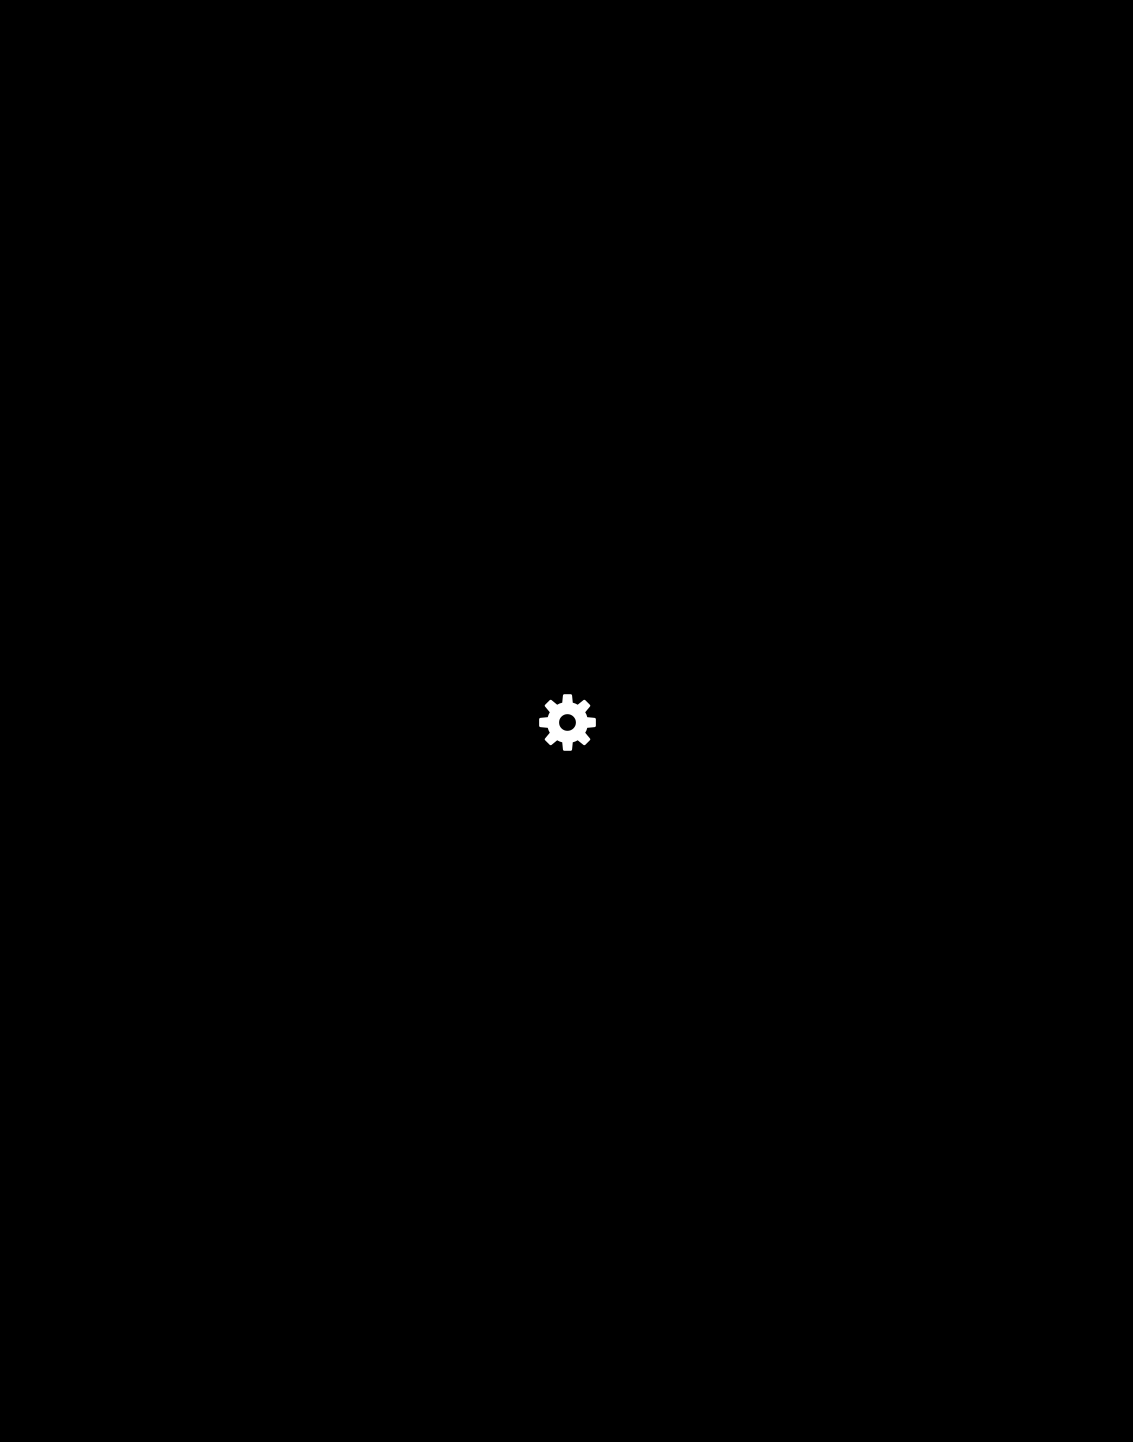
void draw(SkCanvas* canvas) {
    SkPaint paint;
    paint.setAntiAlias(true);
    canvas->clear(0xFF000000);
    canvas->drawImageRect(SkImages::DeferredFromEncodedData(SkData::MakeFromFileName("img1.png")), SkRect::MakeXYWH(539, 694, 57, 57), SkSamplingOptions());
}
